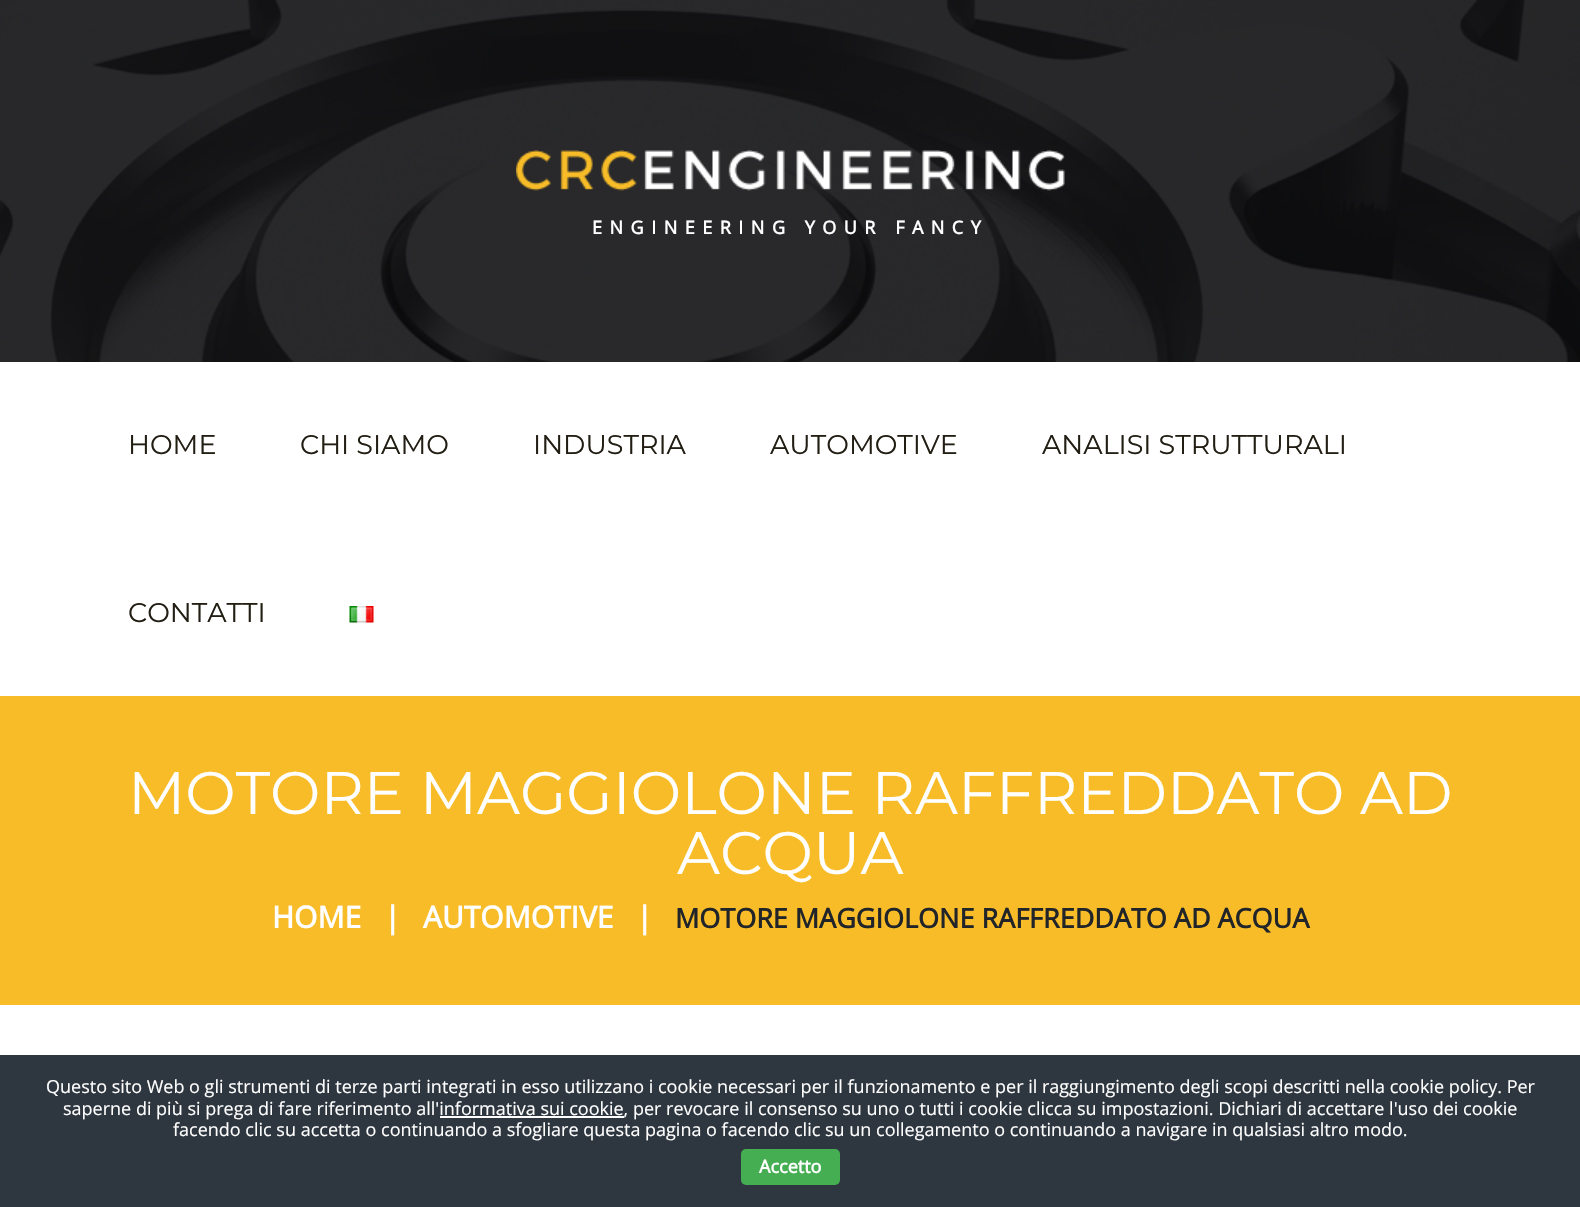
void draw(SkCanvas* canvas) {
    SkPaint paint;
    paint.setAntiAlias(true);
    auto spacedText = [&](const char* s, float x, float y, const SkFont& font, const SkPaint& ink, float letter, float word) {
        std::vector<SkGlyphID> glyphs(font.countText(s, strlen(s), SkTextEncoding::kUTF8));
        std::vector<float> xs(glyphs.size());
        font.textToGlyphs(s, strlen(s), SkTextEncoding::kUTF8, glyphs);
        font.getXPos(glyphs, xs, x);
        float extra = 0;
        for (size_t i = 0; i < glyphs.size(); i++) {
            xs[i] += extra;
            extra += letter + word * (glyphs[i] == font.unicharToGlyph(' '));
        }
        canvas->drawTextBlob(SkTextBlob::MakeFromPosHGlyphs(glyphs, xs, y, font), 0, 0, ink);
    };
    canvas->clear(0xFFFFFFFF);
    canvas->drawImageRect(SkImages::DeferredFromEncodedData(SkData::MakeFromFileName("img1.png")), SkRect::MakeXYWH(0, 0, 1580, 362), SkSamplingOptions());
    canvas->drawImageRect(SkImages::DeferredFromEncodedData(SkData::MakeFromFileName("img2.png")), SkRect::MakeXYWH(516, 150, 549, 41), SkSamplingOptions());
    SkFont font1(fontMgr->matchFamilyStyle("Open Sans", SkFontStyle::Bold()), 18);
    font1.setSubpixel(true);
    paint.setColor(0xFFFFFFFF);
    spacedText("ENGINEERING YOUR FANCY", 592, 234, font1, paint, 7.5f, 0);
    SkFont font2(fontMgr->matchFamilyStyle("Montserrat", SkFontStyle(100, SkFontStyle::kNormal_Width, SkFontStyle::kUpright_Slant)), 27);
    font2.setSubpixel(true);
    paint.setColor(0xFF221E14);
    canvas->drawString("HOME", 128, 454, font2, paint);
    canvas->drawString("CHI SIAMO", 300, 454, font2, paint);
    canvas->drawString("INDUSTRIA", 533, 454, font2, paint);
    canvas->drawString("AUTOMOTIVE", 770, 454, font2, paint);
    canvas->drawString("ANALISI STRUTTURALI", 1042, 454, font2, paint);
    canvas->drawString("CONTATTI", 128, 622, font2, paint);
    canvas->drawImageRect(SkImages::DeferredFromEncodedData(SkData::MakeFromFileName("img3.png")), SkRect::MakeXYWH(349, 606, 25, 17), SkSamplingOptions());
    paint.setColor(0xFFF7BC28);
    canvas->drawRect(SkRect::MakeXYWH(0, 696, 86, 309), paint);
    canvas->drawRect(SkRect::MakeXYWH(86, 696, 1494, 309), paint);
    SkFont font3(fontMgr->matchFamilyStyle("Montserrat", SkFontStyle(100, SkFontStyle::kNormal_Width, SkFontStyle::kUpright_Slant)), 60);
    font3.setSubpixel(true);
    paint.setColor(0xFFFFFFFF);
    canvas->drawString("MOTORE MAGGIOLONE RAFFREDDATO AD", 128, 814, font3, paint);
    canvas->drawString("ACQUA", 677, 874, font3, paint);
    SkFont font4(fontMgr->matchFamilyStyle("Open Sans", SkFontStyle::Bold()), 30);
    font4.setSubpixel(true);
    canvas->drawString("HOME", 272, 928, font4, paint);
    canvas->drawString("|", 384, 928, font4, paint);
    canvas->drawString("AUTOMOTIVE", 423, 928, font4, paint);
    canvas->drawString("|", 636, 928, font4, paint);
    SkFont font5(fontMgr->matchFamilyStyle("Open Sans", SkFontStyle::Bold()), 27);
    font5.setSubpixel(true);
    paint.setColor(0xFF212529);
    canvas->drawString("MOTORE MAGGIOLONE RAFFREDDATO AD ACQUA", 675, 928, font5, paint);
    paint.setColor(0xFF2E363F);
    canvas->drawRect(SkRect::MakeXYWH(0, 1055, 1580, 152), paint);
    SkFont font6(fontMgr->matchFamilyStyle("Open Sans", SkFontStyle::Normal()), 18);
    font6.setSubpixel(true);
    paint.setColor(0xFFFFFFFF);
    canvas->drawString("Questo sito Web o gli strumenti di terze parti integrati in esso utilizzano i cookie necessari per il funzionamento e per il raggiungimento degli scopi descritti nella cookie policy. Per", 46, 1093, font6, paint);
    canvas->drawString("saperne di più si prega di fare riferimento all'informativa sui cookie, per revocare il consenso su uno o tutti i cookie clicca su impostazioni. Dichiari di accettare l'uso dei cookie", 63, 1115, font6, paint);
    canvas->drawRect(SkRect::MakeXYWH(440, 1116, 184, 2), paint);
    canvas->drawString("facendo clic su accetta o continuando a sfogliare questa pagina o facendo clic su un collegamento o continuando a navigare in qualsiasi altro modo.", 173, 1136, font6, paint);
    paint.setColor(0xFF45AE52);
    canvas->drawRoundRect(SkRect::MakeXYWH(741, 1149, 99, 36), 5, 5, paint);
    paint.setColor(0xFFFFFFFF);
    canvas->drawString("Accetto", 759, 1173, font1, paint);
}
